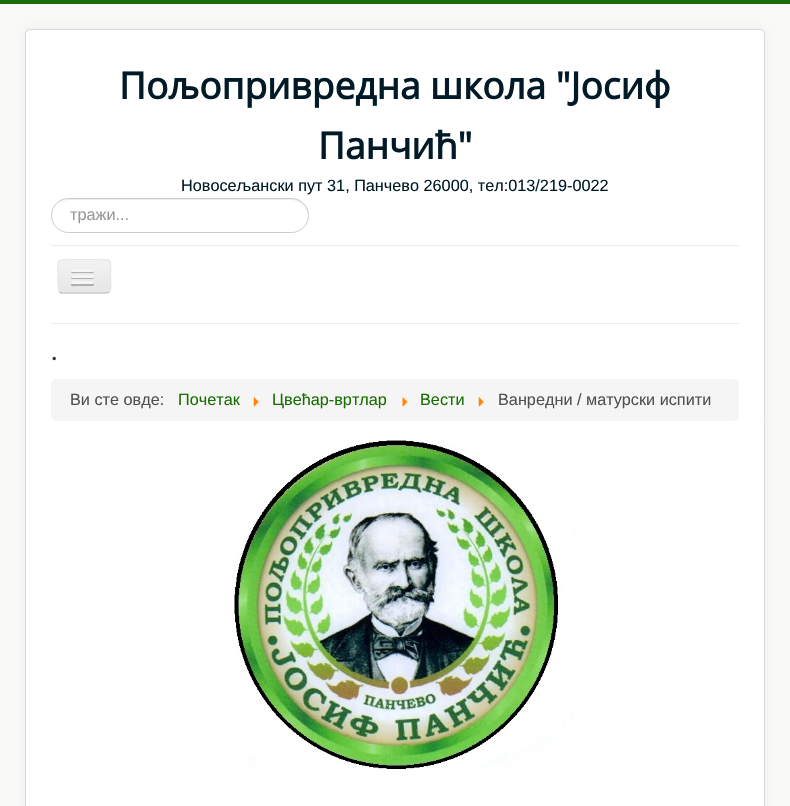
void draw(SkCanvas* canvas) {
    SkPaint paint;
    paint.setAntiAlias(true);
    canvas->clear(0xFFF9FAF7);
    paint.setColor(0xFF196E03);
    canvas->drawRect(SkRect::MakeXYWH(0, 0, 790, 4), paint);
    paint.setColor(0x0D000000);
    paint.setMaskFilter(SkMaskFilter::MakeBlur(kNormal_SkBlurStyle, 4));
    canvas->drawRoundRect(SkRect::MakeXYWH(25, 29, 740, 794), 5, 5, paint);
    paint.setMaskFilter(nullptr);
    paint.setColor(0xFFFFFFFF);
    canvas->drawRoundRect(SkRect::MakeXYWH(25, 29, 740, 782), 5, 5, paint);
    paint.setStyle(SkPaint::kStroke_Style);
    paint.setStrokeWidth(1);
    paint.setColor(0x26000000);
    canvas->drawRoundRect(SkRect::MakeXYWH(25.5f, 29.5f, 739, 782), 4.5f, 4.5f, paint);
    SkFont font1(fontMgr->matchFamilyStyle("Open Sans", SkFontStyle::Bold()), 37);
    font1.setSubpixel(true);
    paint.setStyle(SkPaint::kFill_Style);
    paint.setColor(0xFF001A27);
    canvas->drawString("Пољопривредна школа \"Јосиф", 119, 99, font1, paint);
    canvas->drawString("Панчић\"", 318, 159, font1, paint);
    SkFont font2(fontMgr->matchFamilyStyle("Liberation Sans", SkFontStyle::Normal()), 16.25f);
    font2.setSubpixel(true);
    canvas->drawString("Новосељански пут 31, Панчево 26000, тел:013/219-0022", 181, 191, font2, paint);
    paint.setColor(0xFFECECEC);
    canvas->drawPath(SkPathBuilder().moveTo(69, 200).lineTo(291, 200).cubicTo(300, 200, 308, 207, 308, 216).lineTo(308, 215).cubicTo(308, 206, 301, 199, 292, 199).lineTo(69, 199).cubicTo(63, 199, 59, 202, 56, 206).cubicTo(59, 202, 64, 200, 69, 200).close().detach(), paint);
    paint.setStyle(SkPaint::kStroke_Style);
    paint.setColor(0xFFCCCCCC);
    canvas->drawRoundRect(SkRect::MakeXYWH(51.5f, 198.5f, 257, 34), 17, 17, paint);
    paint.setStyle(SkPaint::kFill_Style);
    paint.setColor(0xFF999999);
    canvas->drawString("тражи...", 70, 220, font2, paint);
    paint.setColor(0xFFECECEC);
    canvas->drawRect(SkRect::MakeXYWH(51, 245, 688, 1), paint);
    canvas->drawRect(SkRect::MakeXYWH(51, 323, 688, 1), paint);
    paint.setColor(0xFFEDEDED);
    canvas->drawRoundRect(SkRect::MakeXYWH(58, 259, 53, 35), 5, 5, paint);
    canvas->save();
    canvas->clipPath(SkPathBuilder().moveTo(63, 259).lineTo(106, 259).cubicTo(109, 259, 111, 261, 111, 264).lineTo(111, 289).cubicTo(111, 292, 109, 294, 106, 294).lineTo(63, 294).cubicTo(60, 294, 58, 292, 58, 289).lineTo(58, 264).cubicTo(58, 261, 60, 259, 63, 259).close().detach(), true);
    {
        const SkColor colors[] = {0xFFF2F2F2, 0xFFE6E6E6};
        const float stops[] = {0, 1};
        const SkPoint ends[] = {{84, 260}, {84, 293}};
        paint.setShader(SkGradientShader::MakeLinear(ends, colors, stops, 2, SkTileMode::kClamp));
        paint.setAlpha(255);
    }
    canvas->drawRect(SkRect::MakeXYWH(58, 260, 53, 33), paint);
    canvas->restore();
    paint.setStyle(SkPaint::kStroke_Style);
    paint.setStrokeWidth(1.2f);
    paint.setShader(nullptr);
    paint.setColor(0xFFBFBFBF);
    canvas->drawPath(SkPathBuilder().moveTo(109.5f, 292).cubicTo(108.5f, 292.5f, 107.5f, 293, 106, 293).lineTo(62.5f, 293).cubicTo(61.5f, 293, 60, 292.5f, 59.5f, 292).detach(), paint);
    paint.setColor(0xFFE6E6E6);
    canvas->drawPath(SkPathBuilder().moveTo(59.5f, 292).cubicTo(57, 289.5f, 58, 279.5f, 58, 276).cubicTo(58, 260.5f, 55, 259.5f, 70, 259.5f).lineTo(99, 259.5f).cubicTo(114, 259.5f, 110.5f, 260.5f, 110.5f, 276).cubicTo(110.5f, 279.5f, 112, 289.5f, 109.5f, 292).detach(), paint);
    paint.setStyle(SkPaint::kFill_Style);
    paint.setColor(0xFFB2B2B2);
    canvas->drawPath(SkPathBuilder().moveTo(71.5f, 270.5f).lineTo(71, 272).cubicTo(71.5f, 274, 75, 273, 76, 273).lineTo(89, 273).cubicTo(90, 273, 93.5f, 274, 94, 272).lineTo(93.5f, 270.5f).cubicTo(93.5f, 271, 93, 271, 92.5f, 271).lineTo(72.5f, 271).cubicTo(72, 271, 71.5f, 271, 71.5f, 270.5f).close().detach(), paint);
    paint.setColor(0xFFF5F5F5);
    canvas->drawRoundRect(SkRect::MakeXYWH(71, 269, 23, 3), 1.5f, 1.5f, paint);
    paint.setColor(0xFFB0B0B0);
    canvas->drawPath(SkPathBuilder().moveTo(71.5f, 276.5f).cubicTo(69, 279.5f, 75.5f, 279, 76, 279).lineTo(89, 279).cubicTo(89.5f, 279, 96, 279.5f, 93.5f, 276.5f).cubicTo(93.5f, 277, 93, 277.5f, 92.5f, 277.5f).lineTo(72.5f, 277.5f).cubicTo(72, 277.5f, 71.5f, 277, 71.5f, 276.5f).close().detach(), paint);
    paint.setColor(0xFFF5F5F5);
    canvas->drawRoundRect(SkRect::MakeXYWH(71, 275, 23, 3), 1.5f, 1.5f, paint);
    paint.setColor(0xFFAFAFAF);
    canvas->drawPath(SkPathBuilder().moveTo(71.5f, 283.5f).cubicTo(71, 283.5f, 71, 284.5f, 71, 285).cubicTo(71.5f, 287, 75, 286, 76, 286).lineTo(93, 286).cubicTo(94, 285.5f, 94.5f, 284, 93.5f, 283.5f).cubicTo(92.5f, 284, 72.5f, 284, 71.5f, 283.5f).close().detach(), paint);
    paint.setColor(0xFFF5F5F5);
    canvas->drawRoundRect(SkRect::MakeXYWH(71, 281, 23, 3), 1.5f, 1.5f, paint);
    SkFont font3(fontMgr->matchFamilyStyle("Open Sans", SkFontStyle::Bold()), 22);
    font3.setSubpixel(true);
    paint.setColor(0xFF333333);
    canvas->drawString(".", 51, 360, font3, paint);
    paint.setColor(0xFFF5F5F5);
    canvas->drawRoundRect(SkRect::MakeXYWH(51, 379, 688, 42), 5, 5, paint);
    paint.setColor(0xFF515151);
    canvas->drawString("Ви сте овде:", 70, 405, font2, paint);
    paint.setColor(0xFF196E03);
    canvas->drawString("Почетак", 178, 405, font2, paint);
    canvas->drawImageRect(SkImages::DeferredFromEncodedData(SkData::MakeFromFileName("img1.png")), SkRect::MakeXYWH(253, 397, 6, 10), SkSamplingOptions());
    canvas->drawString("Цвећар-вртлар", 272, 405, font2, paint);
    canvas->drawImageRect(SkImages::DeferredFromEncodedData(SkData::MakeFromFileName("img2.png")), SkRect::MakeXYWH(402, 397, 6, 10), SkSamplingOptions());
    canvas->drawString("Вести", 420, 405, font2, paint);
    canvas->drawImageRect(SkImages::DeferredFromEncodedData(SkData::MakeFromFileName("img3.png")), SkRect::MakeXYWH(478, 397, 6, 10), SkSamplingOptions());
    paint.setColor(0xFF515151);
    canvas->drawString("Ванредни / матурски испити", 498, 405, font2, paint);
    canvas->drawImageRect(SkImages::DeferredFromEncodedData(SkData::MakeFromFileName("img4.png")), SkRect::MakeXYWH(234, 440, 341, 329), SkSamplingOptions());
}
